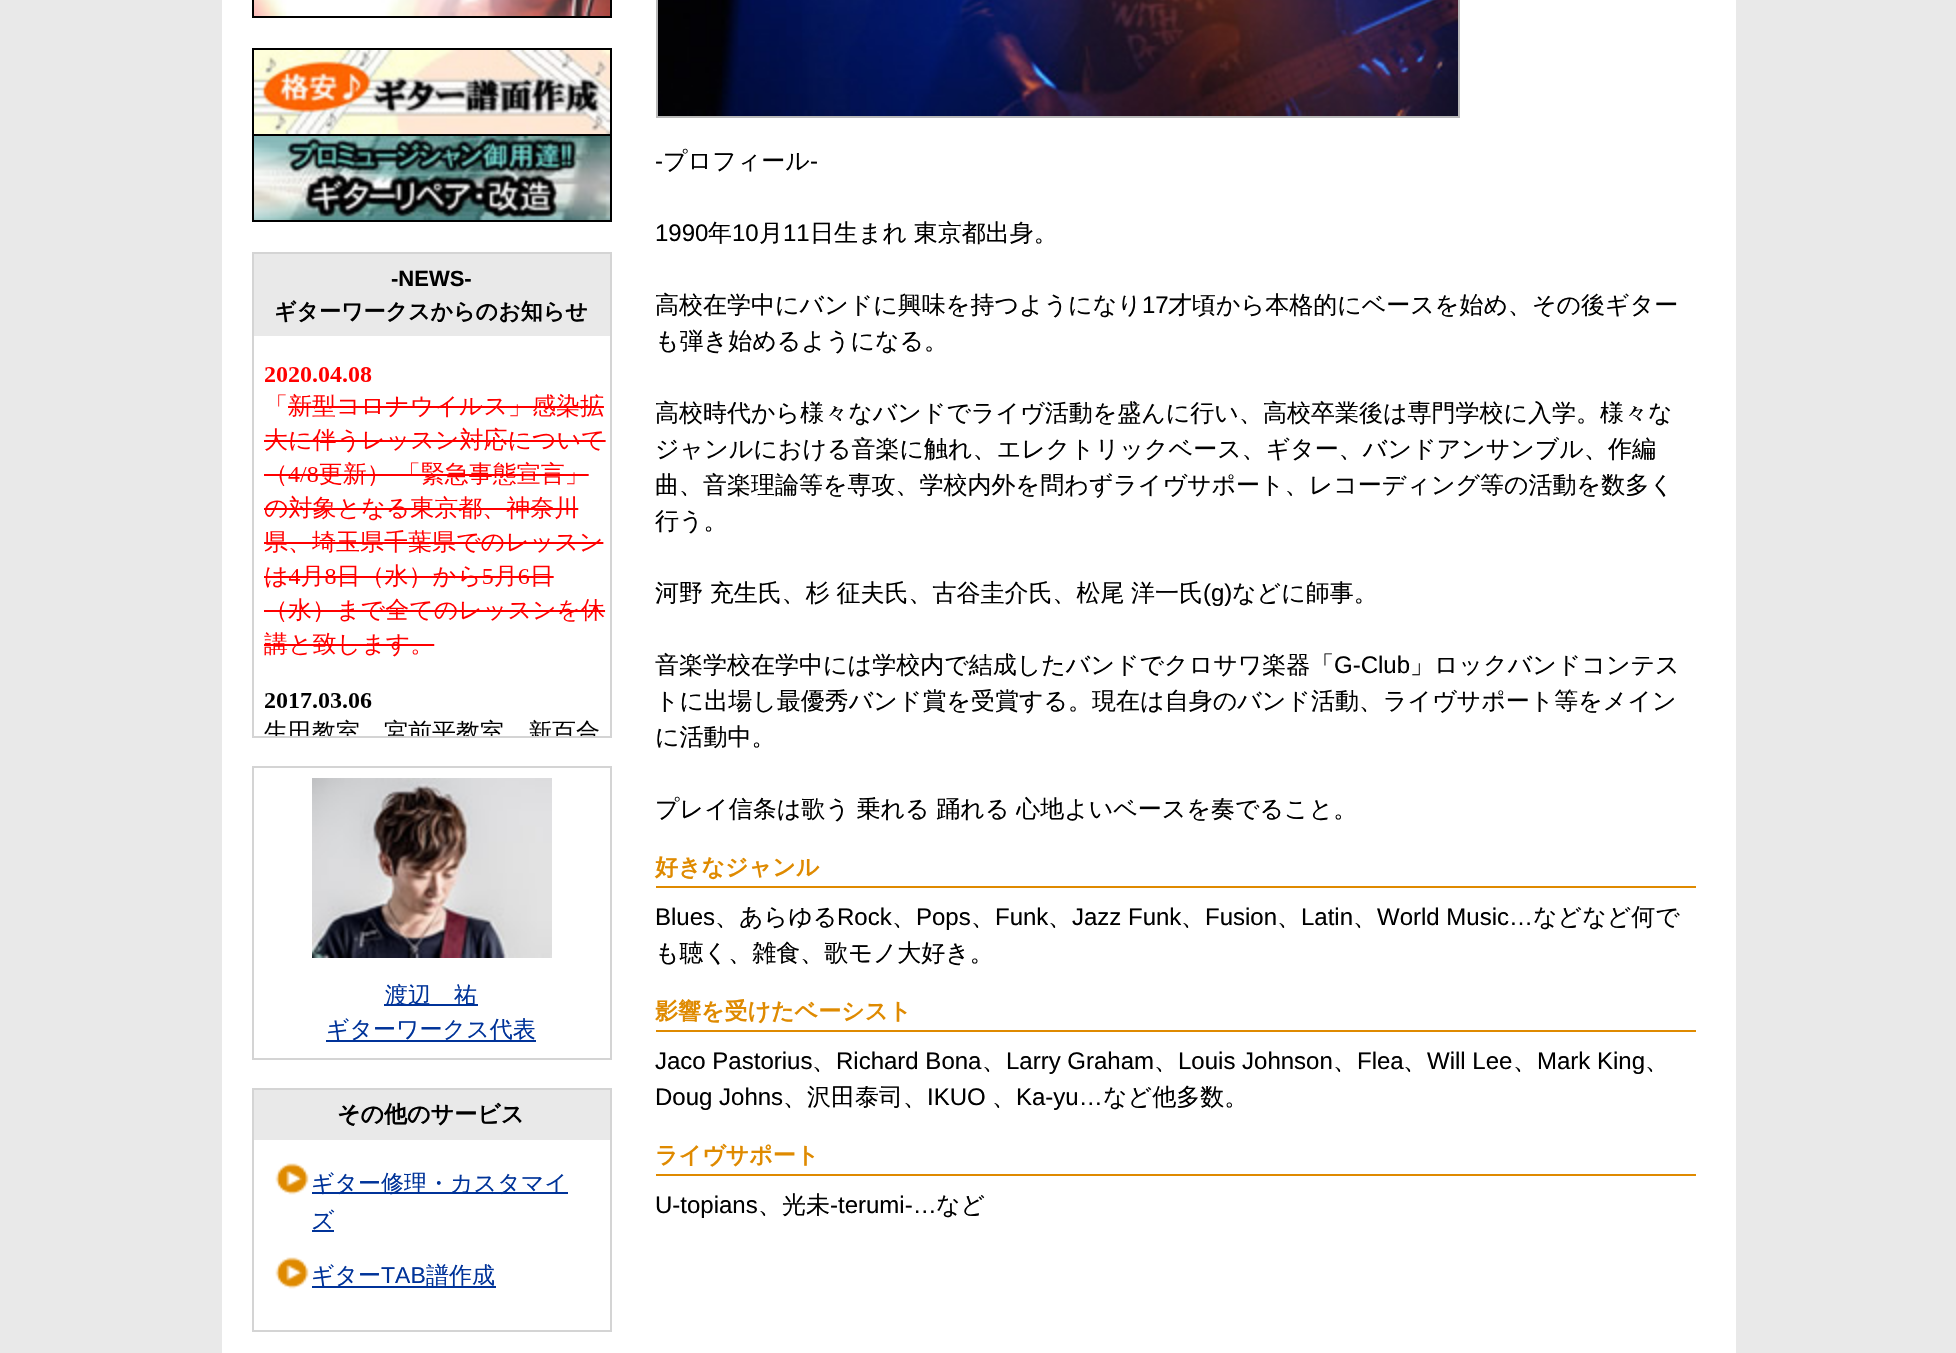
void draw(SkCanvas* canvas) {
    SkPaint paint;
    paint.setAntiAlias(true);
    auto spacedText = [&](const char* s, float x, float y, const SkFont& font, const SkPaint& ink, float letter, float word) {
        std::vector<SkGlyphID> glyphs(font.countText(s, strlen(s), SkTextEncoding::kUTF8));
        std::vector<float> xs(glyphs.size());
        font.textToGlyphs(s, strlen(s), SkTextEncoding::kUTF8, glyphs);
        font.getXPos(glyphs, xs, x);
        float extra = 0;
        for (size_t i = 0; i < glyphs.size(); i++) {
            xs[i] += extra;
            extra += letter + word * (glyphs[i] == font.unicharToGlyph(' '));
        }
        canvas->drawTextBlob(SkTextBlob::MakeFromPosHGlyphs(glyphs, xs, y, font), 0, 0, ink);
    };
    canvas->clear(0xFFE9E9E9);
    paint.setColor(0xFFFFFFFF);
    canvas->drawRect(SkRect::MakeXYWH(222, 0, 1514, 1353), paint);
    paint.setStyle(SkPaint::kStroke_Style);
    paint.setStrokeWidth(2);
    paint.setColor(0xFF000000);
    canvas->drawRect(SkRect::MakeXYWH(253, -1, 358, 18), paint);
    canvas->drawImageRect(SkImages::DeferredFromEncodedData(SkData::MakeFromFileName("img1.png")), SkRect::MakeXYWH(254, 0, 356, 16), SkSamplingOptions());
    paint.setStyle(SkPaint::kFill_Style);
    canvas->drawRect(SkRect::MakeXYWH(252, 48, 360, 2), paint);
    canvas->drawRect(SkRect::MakeXYWH(610, 48, 2, 86), paint);
    canvas->drawRect(SkRect::MakeXYWH(252, 48, 2, 86), paint);
    canvas->drawImageRect(SkImages::DeferredFromEncodedData(SkData::MakeFromFileName("img2.png")), SkRect::MakeXYWH(254, 50, 356, 84), SkSamplingOptions());
    paint.setStyle(SkPaint::kStroke_Style);
    canvas->drawRect(SkRect::MakeXYWH(253, 135, 358, 86), paint);
    canvas->drawImageRect(SkImages::DeferredFromEncodedData(SkData::MakeFromFileName("img3.png")), SkRect::MakeXYWH(254, 136, 356, 84), SkSamplingOptions());
    paint.setColor(0xFFD4D4D4);
    canvas->drawRect(SkRect::MakeXYWH(253, 253, 358, 484), paint);
    paint.setStyle(SkPaint::kFill_Style);
    paint.setColor(0xFFE9E9E9);
    canvas->drawRect(SkRect::MakeXYWH(254, 254, 356, 82), paint);
    SkFont font1(fontMgr->matchFamilyStyle("Liberation Sans", SkFontStyle::Bold()), 22);
    font1.setSubpixel(true);
    paint.setColor(0xFF000000);
    canvas->drawString("-NEWS-", 391, 286, font1, paint);
    SkFont font2(fontMgr->matchFamilyStyle("WenQuanYi Zen Hei", SkFontStyle::Bold()), 22);
    font2.setSubpixel(true);
    canvas->drawString("ギターワークスからのお知らせ", 274, 319, font2, paint);
    canvas->drawImageRect(SkImages::DeferredFromEncodedData(SkData::MakeFromFileName("img4.png")), SkRect::MakeXYWH(264, 367, 342, 369), SkSamplingOptions());
    paint.setStyle(SkPaint::kStroke_Style);
    paint.setColor(0xFFD4D4D4);
    canvas->drawRect(SkRect::MakeXYWH(253, 767, 358, 292), paint);
    canvas->drawImageRect(SkImages::DeferredFromEncodedData(SkData::MakeFromFileName("img5.png")), SkRect::MakeXYWH(312, 778, 240, 180), SkSamplingOptions());
    paint.setStyle(SkPaint::kFill_Style);
    paint.setColor(0xFF003399);
    canvas->drawRect(SkRect::MakeXYWH(384, 1004, 94, 2), paint);
    SkFont font3(fontMgr->matchFamilyStyle("WenQuanYi Zen Hei", SkFontStyle(500, SkFontStyle::kNormal_Width, SkFontStyle::kUpright_Slant)), 23);
    font3.setSubpixel(true);
    canvas->drawString("渡辺　祐", 385, 1003, font3, paint);
    canvas->drawRect(SkRect::MakeXYWH(326, 1040, 210, 2), paint);
    canvas->drawString("ギターワークス代表", 326, 1037, font3, paint);
    paint.setStyle(SkPaint::kStroke_Style);
    paint.setColor(0xFFD4D4D4);
    canvas->drawRect(SkRect::MakeXYWH(253, 1089, 358, 242), paint);
    paint.setStyle(SkPaint::kFill_Style);
    paint.setColor(0xFFE9E9E9);
    canvas->drawRect(SkRect::MakeXYWH(254, 1090, 356, 50), paint);
    SkFont font4(fontMgr->matchFamilyStyle("WenQuanYi Zen Hei", SkFontStyle::Bold()), 23);
    font4.setSubpixel(true);
    paint.setColor(0xFF000000);
    canvas->drawString("その他のサービス", 337, 1122, font4, paint);
    canvas->drawImageRect(SkImages::DeferredFromEncodedData(SkData::MakeFromFileName("img6.png")), SkRect::MakeXYWH(275, 1163, 34, 32), SkSamplingOptions());
    paint.setColor(0xFF003399);
    canvas->drawRect(SkRect::MakeXYWH(312, 1192, 256, 2), paint);
    canvas->drawString("ギター修理・カスタマイ", 311, 1191, font3, paint);
    canvas->drawString("ズ", 311, 1228, font3, paint);
    canvas->drawRect(SkRect::MakeXYWH(312, 1230, 22, 2), paint);
    canvas->drawImageRect(SkImages::DeferredFromEncodedData(SkData::MakeFromFileName("img6.png")), SkRect::MakeXYWH(275, 1257, 34, 32), SkSamplingOptions());
    canvas->drawRect(SkRect::MakeXYWH(312, 1286, 184, 2), paint);
    canvas->drawString("ギター", 311, 1283, font3, paint);
    SkFont font5(fontMgr->matchFamilyStyle("Liberation Sans", SkFontStyle::Normal()), 23);
    font5.setSubpixel(true);
    canvas->drawString("TAB", 381, 1283, font5, paint);
    canvas->drawString("譜作成", 426, 1283, font3, paint);
    paint.setStyle(SkPaint::kStroke_Style);
    paint.setColor(0xFFB9B9B9);
    canvas->drawRect(SkRect::MakeXYWH(657, -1, 802, 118), paint);
    canvas->drawImageRect(SkImages::DeferredFromEncodedData(SkData::MakeFromFileName("img7.png")), SkRect::MakeXYWH(658, 0, 800, 116), SkSamplingOptions());
    SkFont font6(fontMgr->matchFamilyStyle("Liberation Sans", SkFontStyle::Normal()), 24);
    font6.setSubpixel(true);
    paint.setStyle(SkPaint::kFill_Style);
    paint.setColor(0xFF000000);
    canvas->drawString("-", 655, 169, font6, paint);
    SkFont font7(fontMgr->matchFamilyStyle("WenQuanYi Zen Hei", SkFontStyle(500, SkFontStyle::kNormal_Width, SkFontStyle::kUpright_Slant)), 24);
    font7.setSubpixel(true);
    canvas->drawString("プロフィール", 663, 169, font7, paint);
    canvas->drawString("-", 810, 169, font6, paint);
    canvas->drawString("1990", 655, 241, font6, paint);
    canvas->drawString("年", 708, 241, font7, paint);
    canvas->drawString("10", 732, 241, font6, paint);
    canvas->drawString("月", 759, 241, font7, paint);
    canvas->drawString("11", 783, 241, font6, paint);
    spacedText("日生まれ 東京都出身。", 810, 241, font7, paint, 0, -0.5f);
    canvas->drawString("高校在学中にバンドに興味を持つようになり", 655, 313, font7, paint);
    canvas->drawString("17", 1142, 313, font6, paint);
    canvas->drawString("才頃から本格的にベースを始め、その後ギター", 1168, 313, font7, paint);
    canvas->drawString("も弾き始めるようになる。", 655, 349, font7, paint);
    canvas->drawString("高校時代から様々なバンドでライヴ活動を盛んに行い、高校卒業後は専門学校に入学。様々な", 655, 421, font7, paint);
    canvas->drawString("ジャンルにおける音楽に触れ、エレクトリックベース、ギター、バンドアンサンブル、作編", 655, 457, font7, paint);
    canvas->drawString("曲、音楽理論等を専攻、学校内外を問わずライヴサポート、レコーディング等の活動を数多く", 655, 493, font7, paint);
    canvas->drawString("行う。", 655, 529, font7, paint);
    spacedText("河野 充生氏、杉 征夫氏、古谷圭介氏、松尾 洋一氏", 655, 601, font7, paint, 0, -0.5f);
    canvas->drawString("(g)", 1203, 601, font6, paint);
    canvas->drawString("などに師事。", 1232, 601, font7, paint);
    canvas->drawString("音楽学校在学中には学校内で結成したバンドでクロサワ楽器「", 655, 673, font7, paint);
    canvas->drawString("G-Club", 1334, 673, font6, paint);
    canvas->drawString("」ロックバンドコンテス", 1410, 673, font7, paint);
    canvas->drawString("トに出場し最優秀バンド賞を受賞する。現在は自身のバンド活動、ライヴサポート等をメイン", 655, 709, font7, paint);
    canvas->drawString("に活動中。", 655, 745, font7, paint);
    spacedText("プレイ信条は歌う 乗れる 踊れる 心地よいベースを奏でること。", 655, 817, font7, paint, 0, -0.5f);
    paint.setColor(0xFFDF8A00);
    canvas->drawRect(SkRect::MakeXYWH(656, 886, 1040, 2), paint);
    canvas->drawString("好きなジャンル", 655, 875, font4, paint);
    paint.setColor(0xFF000000);
    canvas->drawString("Blues", 655, 925, font6, paint);
    canvas->drawString("、あらゆる", 715, 925, font7, paint);
    canvas->drawString("Rock", 837, 925, font6, paint);
    canvas->drawString("、", 892, 925, font7, paint);
    canvas->drawString("Pops", 916, 925, font6, paint);
    canvas->drawString("、", 971, 925, font7, paint);
    canvas->drawString("Funk", 995, 925, font6, paint);
    canvas->drawString("、", 1048, 925, font7, paint);
    canvas->drawString("Jazz Funk", 1072, 925, font6, paint);
    canvas->drawString("、", 1181, 925, font7, paint);
    canvas->drawString("Fusion", 1205, 925, font6, paint);
    canvas->drawString("、", 1277, 925, font7, paint);
    canvas->drawString("Latin", 1301, 925, font6, paint);
    canvas->drawString("、", 1353, 925, font7, paint);
    canvas->drawString("World Music…", 1377, 925, font6, paint);
    canvas->drawString("などなど何で", 1533, 925, font7, paint);
    canvas->drawString("も聴く、雑食、歌モノ大好き。", 655, 961, font7, paint);
    paint.setColor(0xFFDF8A00);
    canvas->drawRect(SkRect::MakeXYWH(656, 1030, 1040, 2), paint);
    canvas->drawString("影響を受けたベーシスト", 655, 1019, font4, paint);
    paint.setColor(0xFF000000);
    canvas->drawString("Jaco Pastorius", 655, 1069, font6, paint);
    canvas->drawString("、", 812, 1069, font7, paint);
    canvas->drawString("Richard Bona", 836, 1069, font6, paint);
    canvas->drawString("、", 982, 1069, font7, paint);
    canvas->drawString("Larry Graham", 1006, 1069, font6, paint);
    canvas->drawString("、", 1154, 1069, font7, paint);
    canvas->drawString("Louis Johnson", 1178, 1069, font6, paint);
    canvas->drawString("、", 1333, 1069, font7, paint);
    canvas->drawString("Flea", 1357, 1069, font6, paint);
    canvas->drawString("、", 1403, 1069, font7, paint);
    canvas->drawString("Will Lee", 1427, 1069, font6, paint);
    canvas->drawString("、", 1513, 1069, font7, paint);
    canvas->drawString("Mark King", 1537, 1069, font6, paint);
    canvas->drawString("、", 1645, 1069, font7, paint);
    canvas->drawString("Doug Johns", 655, 1105, font6, paint);
    canvas->drawString("、沢田泰司、", 783, 1105, font7, paint);
    canvas->drawString("IKUO", 927, 1105, font6, paint);
    canvas->drawString("、", 992, 1105, font7, paint);
    canvas->drawString("Ka-yu…", 1016, 1105, font6, paint);
    canvas->drawString("など他多数。", 1103, 1105, font7, paint);
    paint.setColor(0xFFDF8A00);
    canvas->drawRect(SkRect::MakeXYWH(656, 1174, 1040, 2), paint);
    canvas->drawString("ライヴサポート", 655, 1163, font4, paint);
    paint.setColor(0xFF000000);
    canvas->drawString("U-topians", 655, 1213, font6, paint);
    canvas->drawString("、光未", 758, 1213, font7, paint);
    canvas->drawString("-terumi-…", 830, 1213, font6, paint);
    canvas->drawString("など", 936, 1213, font7, paint);
}
